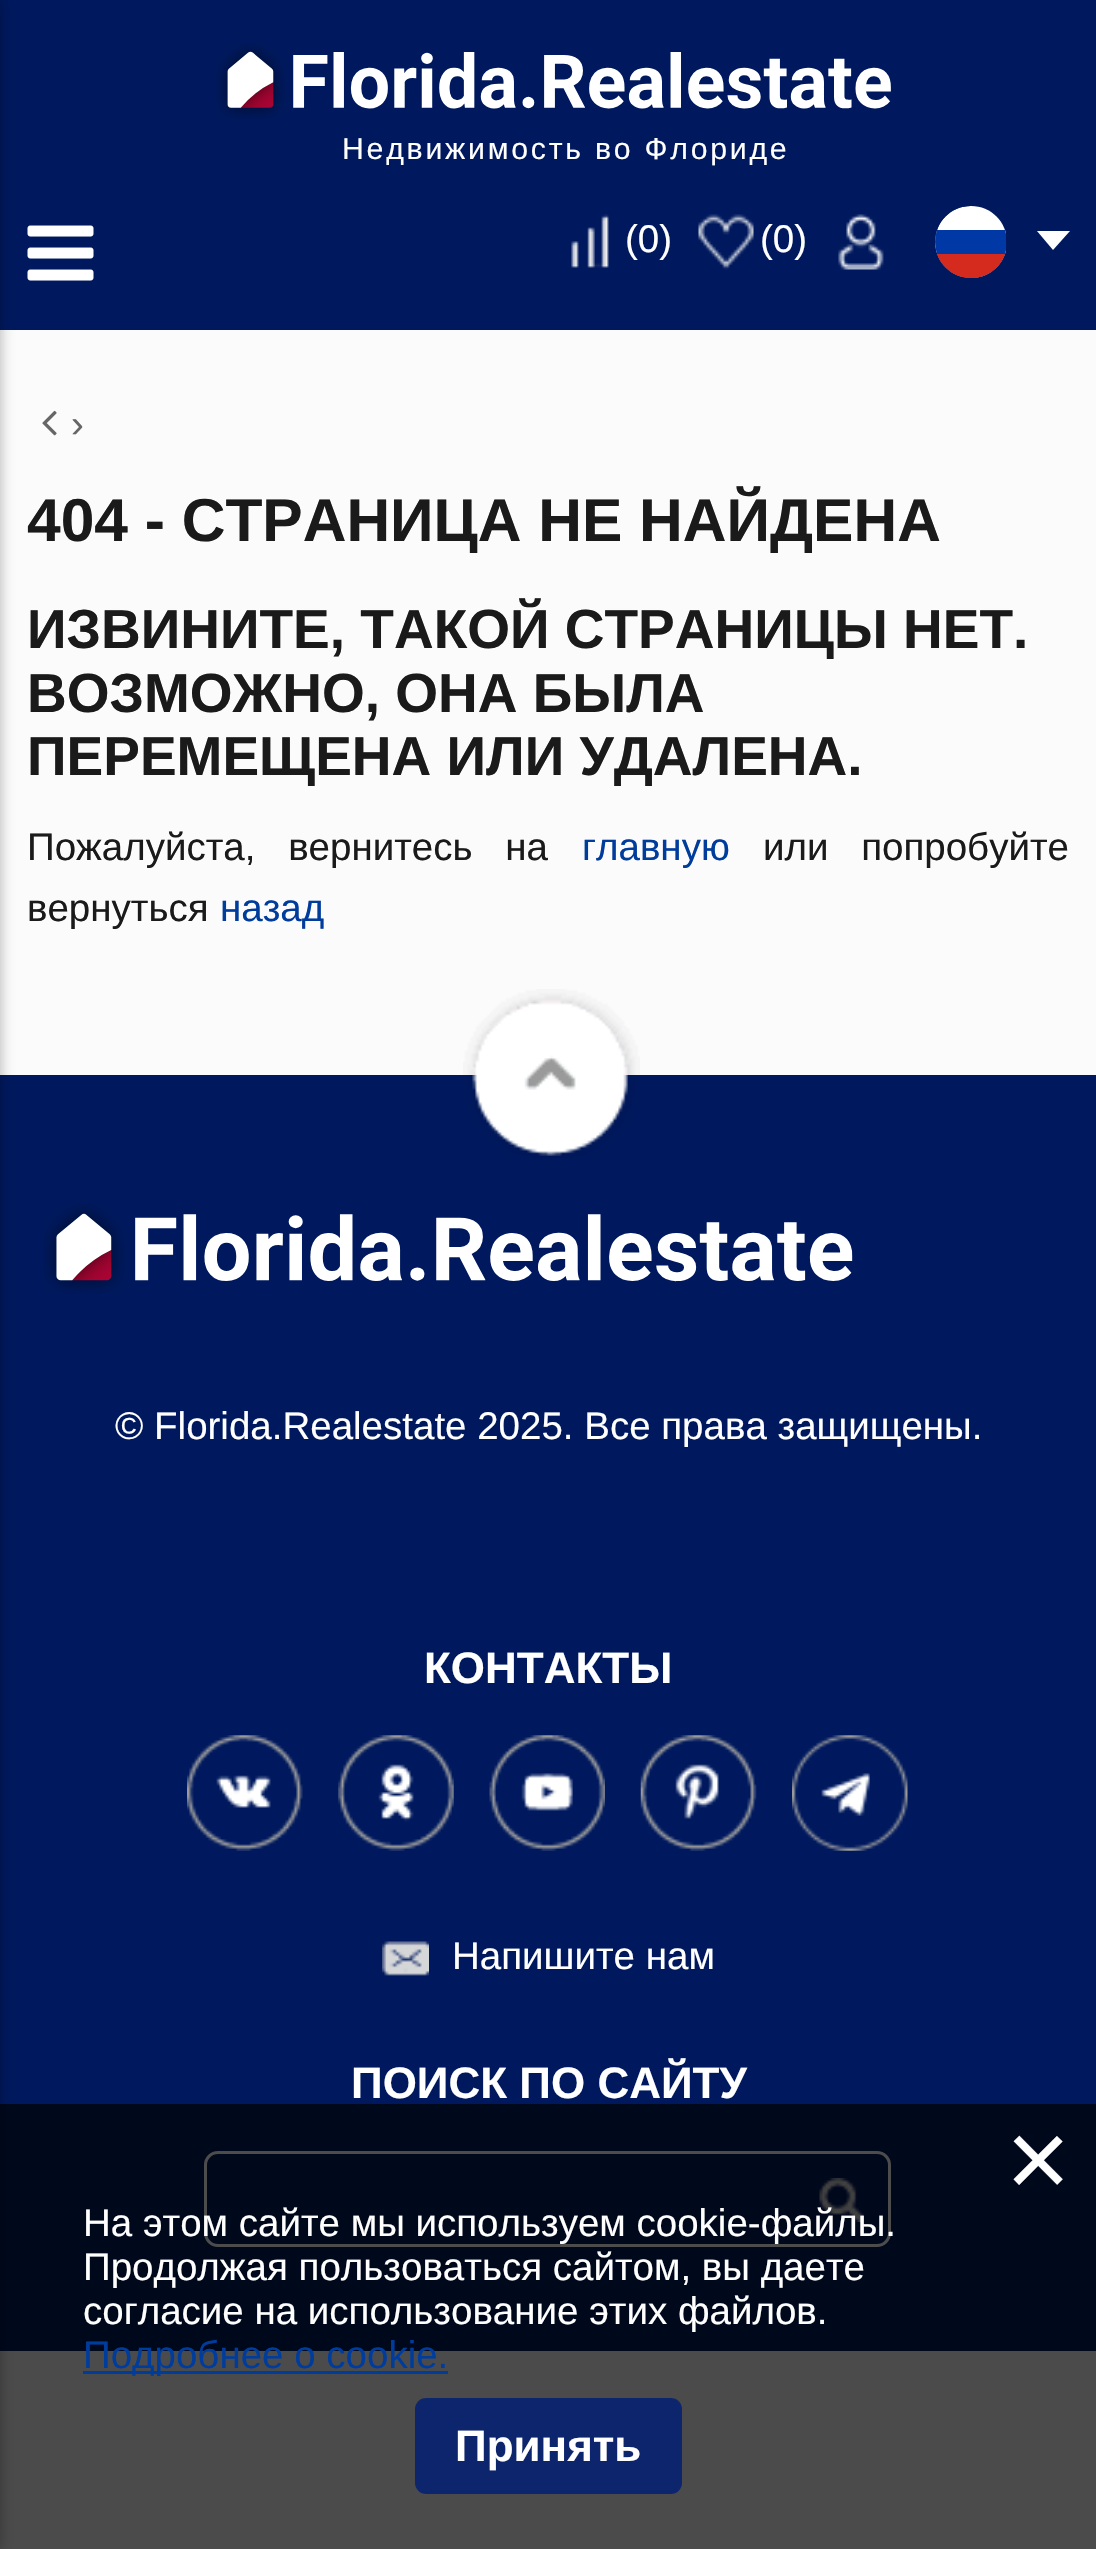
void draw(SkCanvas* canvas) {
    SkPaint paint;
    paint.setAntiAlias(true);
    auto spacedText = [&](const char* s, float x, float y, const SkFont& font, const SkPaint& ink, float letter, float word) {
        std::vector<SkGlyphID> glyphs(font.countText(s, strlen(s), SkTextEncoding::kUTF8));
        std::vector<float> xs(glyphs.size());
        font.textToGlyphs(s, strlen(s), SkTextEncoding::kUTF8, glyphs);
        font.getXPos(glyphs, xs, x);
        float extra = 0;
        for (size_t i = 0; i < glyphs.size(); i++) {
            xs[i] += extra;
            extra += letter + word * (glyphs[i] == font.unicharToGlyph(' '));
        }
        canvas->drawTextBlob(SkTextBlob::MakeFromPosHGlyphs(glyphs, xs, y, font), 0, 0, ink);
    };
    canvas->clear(0xFFFBFBFB);
    paint.setColor(0xFF00195E);
    canvas->drawRect(SkRect::MakeXYWH(0, 0, 1096, 330), paint);
    canvas->drawRect(SkRect::MakeXYWH(0, 1075, 1096, 1276), paint);
    paint.setColor(0x4D000000);
    paint.setMaskFilter(SkMaskFilter::MakeBlur(kNormal_SkBlurStyle, 7));
    canvas->drawRect(SkRect::MakeXYWH(-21, 0, 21, 2549), paint);
    paint.setMaskFilter(nullptr);
    canvas->drawImageRect(SkImages::DeferredFromEncodedData(SkData::MakeFromFileName("img1.png")), SkRect::MakeXYWH(216, 43, 675, 76), SkSamplingOptions());
    SkFont font1(fontMgr->matchFamilyStyle("Liberation Sans", SkFontStyle::Normal()), 30.25f);
    font1.setSubpixel(true);
    paint.setColor(0xFFFFFFFF);
    spacedText("Недвижимость во Флориде", 342, 159, font1, paint, 2.75f, 0);
    canvas->drawImageRect(SkImages::DeferredFromEncodedData(SkData::MakeFromFileName("img2.png")), SkRect::MakeXYWH(27, 225, 67, 56), SkSamplingOptions());
    canvas->drawImageRect(SkImages::DeferredFromEncodedData(SkData::MakeFromFileName("img3.png")), SkRect::MakeXYWH(571, 214, 38, 54), SkSamplingOptions());
    SkFont font2(fontMgr->matchFamilyStyle("Liberation Sans", SkFontStyle::Normal()), 38.5f);
    font2.setSubpixel(true);
    canvas->drawString("(0)", 625, 252, font2, paint);
    canvas->drawImageRect(SkImages::DeferredFromEncodedData(SkData::MakeFromFileName("img4.png")), SkRect::MakeXYWH(698, 214, 56, 56), SkSamplingOptions());
    canvas->drawString("(0)", 760, 252, font2, paint);
    canvas->drawImageRect(SkImages::DeferredFromEncodedData(SkData::MakeFromFileName("img5.png")), SkRect::MakeXYWH(838, 214, 46, 56), SkSamplingOptions());
    canvas->save();
    canvas->clipPath(SkPathBuilder().moveTo(971, 206).cubicTo(991, 206, 1007, 222, 1007, 242).cubicTo(1007, 262, 991, 278, 971, 278).cubicTo(951, 278, 935, 262, 935, 242).cubicTo(935, 222, 951, 206, 971, 206).close().detach(), true);
    canvas->drawPath(SkPathBuilder().moveTo(971, 206).lineTo(1006, 206).lineTo(1006, 278).lineTo(971, 278).cubicTo(951, 278, 935, 262, 935, 242).cubicTo(935, 222, 951, 206, 971, 206).close().detach(), paint);
    paint.setColor(0xFF0039A6);
    canvas->drawPath(SkPathBuilder().moveTo(935, 230).lineTo(1006, 230).lineTo(1006, 278).lineTo(971, 278).cubicTo(951, 278, 935, 262, 935, 242).close().detach(), paint);
    paint.setColor(0xFFD52B1E);
    canvas->drawRect(SkRect::MakeXYWH(937, 254, 68, 24), paint);
    canvas->restore();
    paint.setColor(0xFFFFFFFF);
    canvas->drawPath(SkPathBuilder().moveTo(1037, 231).lineTo(1070, 231).lineTo(1053, 250).close().detach(), paint);
    canvas->drawImageRect(SkImages::DeferredFromEncodedData(SkData::MakeFromFileName("img6.png")), SkRect::MakeXYWH(42, 410, 15, 26), SkSamplingOptions());
    paint.setColor(0xFF666666);
    canvas->drawString("›", 71, 437, font2, paint);
    SkFont font3(fontMgr->matchFamilyStyle("Liberation Sans", SkFontStyle::Bold()), 60.5f);
    font3.setSubpixel(true);
    paint.setColor(0xFF1A1A1A);
    canvas->drawString("404 - СТРАНИЦА НЕ НАЙДЕНА", 27, 541, font3, paint);
    SkFont font4(fontMgr->matchFamilyStyle("Liberation Sans", SkFontStyle::Bold()), 55);
    font4.setSubpixel(true);
    canvas->drawString("ИЗВИНИТЕ, ТАКОЙ СТРАНИЦЫ НЕТ.", 27, 648, font4, paint);
    canvas->drawString("ВОЗМОЖНО, ОНА БЫЛА", 27, 712, font4, paint);
    canvas->drawString("ПЕРЕМЕЩЕНА ИЛИ УДАЛЕНА.", 27, 775, font4, paint);
    spacedText("Пожалуйста, вернитесь на", 27, 860, font2, paint, 0, 22);
    paint.setColor(0xFF003C9C);
    canvas->drawString("главную", 582, 860, font2, paint);
    paint.setColor(0xFF1A1A1A);
    spacedText("или попробуйте", 763, 860, font2, paint, 0, 22);
    canvas->drawString("вернуться", 27, 921, font2, paint);
    paint.setColor(0xFF003C9C);
    canvas->drawString("назад", 220, 921, font2, paint);
    canvas->drawImageRect(SkImages::DeferredFromEncodedData(SkData::MakeFromFileName("img7.png")), SkRect::MakeXYWH(463, 989, 177, 169), SkSamplingOptions());
    canvas->drawImageRect(SkImages::DeferredFromEncodedData(SkData::MakeFromFileName("img8.png")), SkRect::MakeXYWH(43, 1204, 810, 90), SkSamplingOptions());
    paint.setColor(0xFFFFFFFF);
    canvas->drawString("© Florida.Realestate 2025. Все права защищены.", 115, 1439, font2, paint);
    SkFont font5(fontMgr->matchFamilyStyle("Liberation Sans", SkFontStyle::Bold()), 44);
    font5.setSubpixel(true);
    canvas->drawString("КОНТАКТЫ", 424, 1683, font5, paint);
    canvas->drawImageRect(SkImages::DeferredFromEncodedData(SkData::MakeFromFileName("img9.png")), SkRect::MakeXYWH(187, 1735, 116, 116), SkSamplingOptions());
    canvas->drawImageRect(SkImages::DeferredFromEncodedData(SkData::MakeFromFileName("img10.png")), SkRect::MakeXYWH(338, 1735, 116, 116), SkSamplingOptions());
    canvas->drawImageRect(SkImages::DeferredFromEncodedData(SkData::MakeFromFileName("img11.png")), SkRect::MakeXYWH(489, 1735, 116, 116), SkSamplingOptions());
    canvas->drawImageRect(SkImages::DeferredFromEncodedData(SkData::MakeFromFileName("img12.png")), SkRect::MakeXYWH(640, 1735, 117, 116), SkSamplingOptions());
    canvas->drawImageRect(SkImages::DeferredFromEncodedData(SkData::MakeFromFileName("img13.png")), SkRect::MakeXYWH(792, 1735, 116, 116), SkSamplingOptions());
    canvas->drawImageRect(SkImages::DeferredFromEncodedData(SkData::MakeFromFileName("img14.png")), SkRect::MakeXYWH(382, 1941, 47, 35), SkSamplingOptions());
    canvas->drawString("Напишите нам", 452, 1969, font2, paint);
    canvas->drawString("ПОИСК ПО САЙТУ", 351, 2098, font5, paint);
    paint.setStyle(SkPaint::kStroke_Style);
    paint.setStrokeWidth(3);
    canvas->drawRoundRect(SkRect::MakeXYWH(205.5f, 2152.5f, 684, 93), 12.5f, 12.5f, paint);
    canvas->drawImageRect(SkImages::DeferredFromEncodedData(SkData::MakeFromFileName("img15.png")), SkRect::MakeXYWH(819, 2178, 45, 44), SkSamplingOptions());
    paint.setStyle(SkPaint::kFill_Style);
    paint.setColor(0xB3000000);
    canvas->drawRect(SkRect::MakeXYWH(0, 2104, 1096, 445), paint);
    SkFont font6(fontMgr->matchFamilyStyle("Liberation Sans", SkFontStyle::Normal()), 110);
    font6.setSubpixel(true);
    paint.setColor(0xFFFFFFFF);
    canvas->drawString("×", 1006, 2197, font6, paint);
    canvas->drawString("На этом сайте мы используем cookie-файлы.", 83, 2236, font2, paint);
    canvas->drawString("Продолжая пользоваться сайтом, вы даете", 83, 2280, font2, paint);
    canvas->drawString("согласие на использование этих файлов.", 83, 2324, font2, paint);
    paint.setColor(0xFF003C9C);
    canvas->drawRect(SkRect::MakeXYWH(83, 2371, 365, 3), paint);
    canvas->drawString("Подробнее о cookie.", 83, 2368, font2, paint);
    paint.setColor(0xFF0D256C);
    canvas->drawRoundRect(SkRect::MakeXYWH(415, 2398, 267, 96), 11, 11, paint);
    paint.setColor(0xFFFFFFFF);
    canvas->drawString("Принять", 455, 2461, font5, paint);
}
